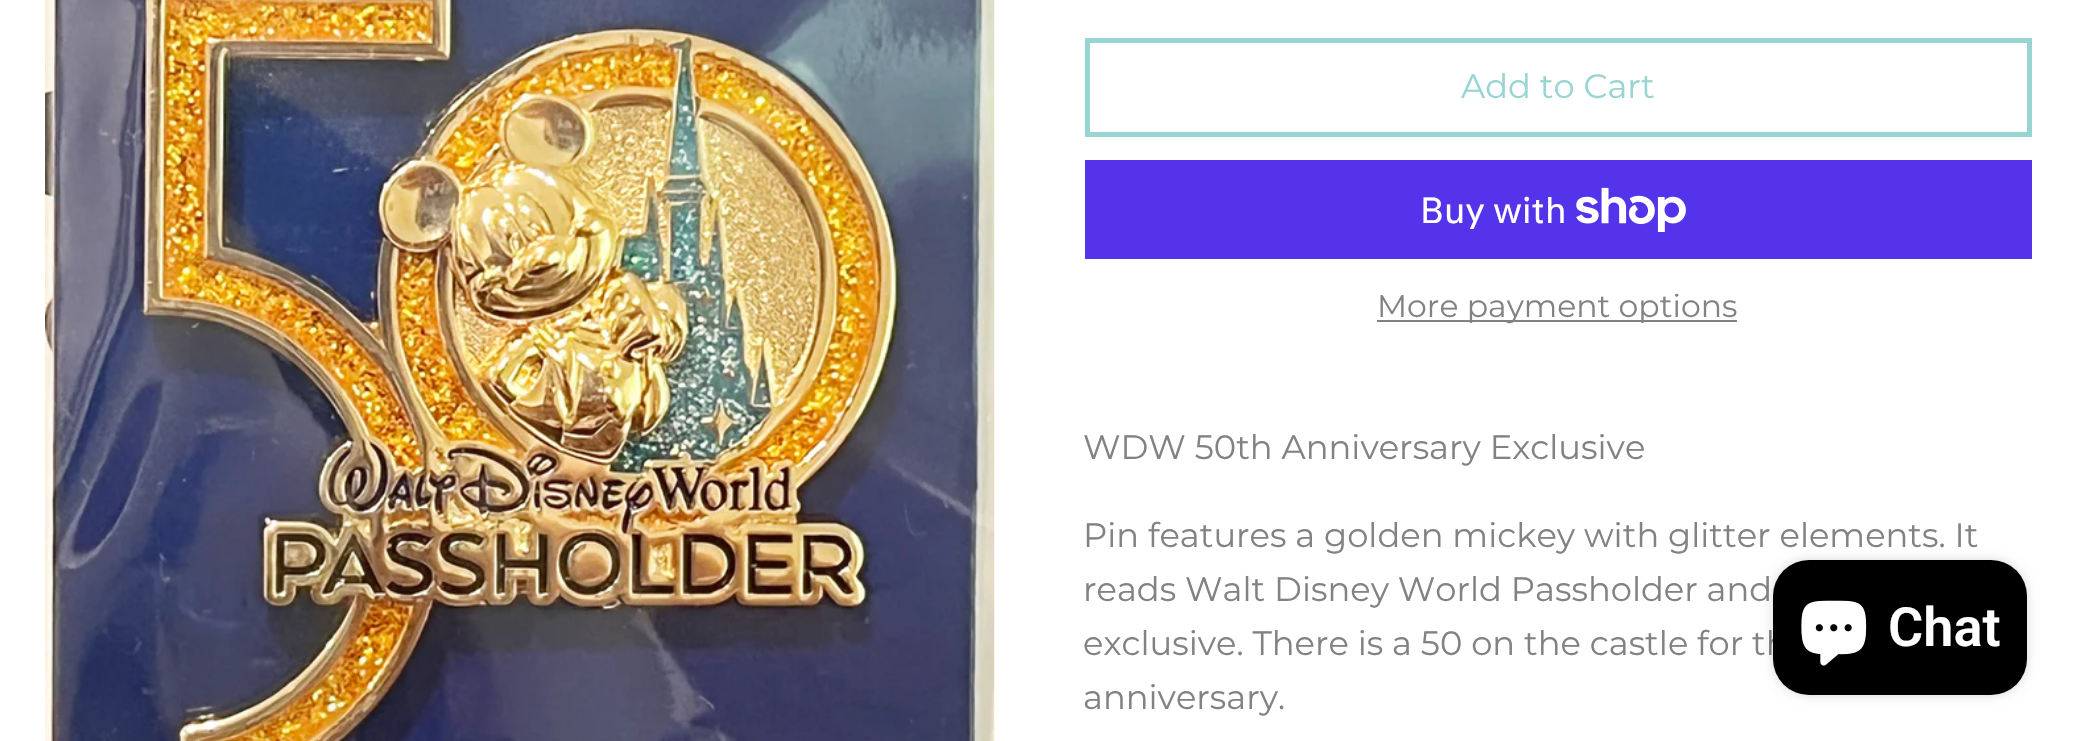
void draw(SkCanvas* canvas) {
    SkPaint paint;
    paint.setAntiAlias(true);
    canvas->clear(0xFFFFFFFF);
    canvas->drawImageRect(SkImages::DeferredFromEncodedData(SkData::MakeFromFileName("img1.png")), SkRect::MakeXYWH(45, 0, 950, 741), SkSamplingOptions());
    paint.setStyle(SkPaint::kStroke_Style);
    paint.setStrokeWidth(5);
    paint.setColor(0xFF98D4D2);
    canvas->drawRect(SkRect::MakeXYWH(1087.5f, 40.5f, 942, 94), paint);
    SkFont font1(fontMgr->matchFamilyStyle("Montserrat", SkFontStyle::Normal()), 33.75f);
    font1.setSubpixel(true);
    paint.setStyle(SkPaint::kFill_Style);
    canvas->drawString("Add to Cart", 1461, 98, font1, paint);
    paint.setColor(0xFF5433EB);
    canvas->drawRect(SkRect::MakeXYWH(1085, 160, 947, 99), paint);
    SkFont font2(fontMgr->matchFamilyStyle("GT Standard", SkFontStyle::Normal()), 36);
    font2.setSubpixel(true);
    paint.setColor(0xFFFFFFFF);
    canvas->drawString("Buy with", 1420, 223, font2, paint);
    canvas->drawImageRect(SkImages::DeferredFromEncodedData(SkData::MakeFromFileName("img2.png")), SkRect::MakeXYWH(1576, 187, 110, 45), SkSamplingOptions());
    paint.setColor(0xFF828282);
    canvas->drawRect(SkRect::MakeXYWH(1377, 320, 360, 2), paint);
    SkFont font3(fontMgr->matchFamilyStyle("Montserrat", SkFontStyle::Normal()), 31.5f);
    font3.setSubpixel(true);
    canvas->drawString("More payment options", 1377, 317, font3, paint);
    canvas->drawString("WDW 50th Anniversary Exclusive", 1083, 459, font1, paint);
    canvas->drawString("Pin features a golden mickey with glitter elements. It", 1083, 547, font1, paint);
    canvas->drawString("reads Walt Disney World Passholder and", 1083, 601, font1, paint);
    canvas->drawString("exclusive. There is a 50 on the castle for th", 1083, 655, font1, paint);
    canvas->drawString("anniversary.", 1083, 709, font1, paint);
    paint.setColor(0x26000000);
    paint.setMaskFilter(SkMaskFilter::MakeBlur(kNormal_SkBlurStyle, 5.5f));
    canvas->drawRoundRect(SkRect::MakeXYWH(1773, 560, 254, 135), 36, 36, paint);
    paint.setMaskFilter(nullptr);
    paint.setColor(0xFF000000);
    canvas->drawRoundRect(SkRect::MakeXYWH(1773, 560, 254, 135), 36, 36, paint);
    canvas->drawImageRect(SkImages::DeferredFromEncodedData(SkData::MakeFromFileName("img3.png")), SkRect::MakeXYWH(1801, 600, 66, 66), SkSamplingOptions());
    SkFont font4(fontMgr->matchFamilyStyle("Roboto", SkFontStyle(600, SkFontStyle::kNormal_Width, SkFontStyle::kUpright_Slant)), 54);
    font4.setSubpixel(true);
    paint.setColor(0xFFFFFFFF);
    canvas->drawString("Chat", 1888, 646, font4, paint);
}
